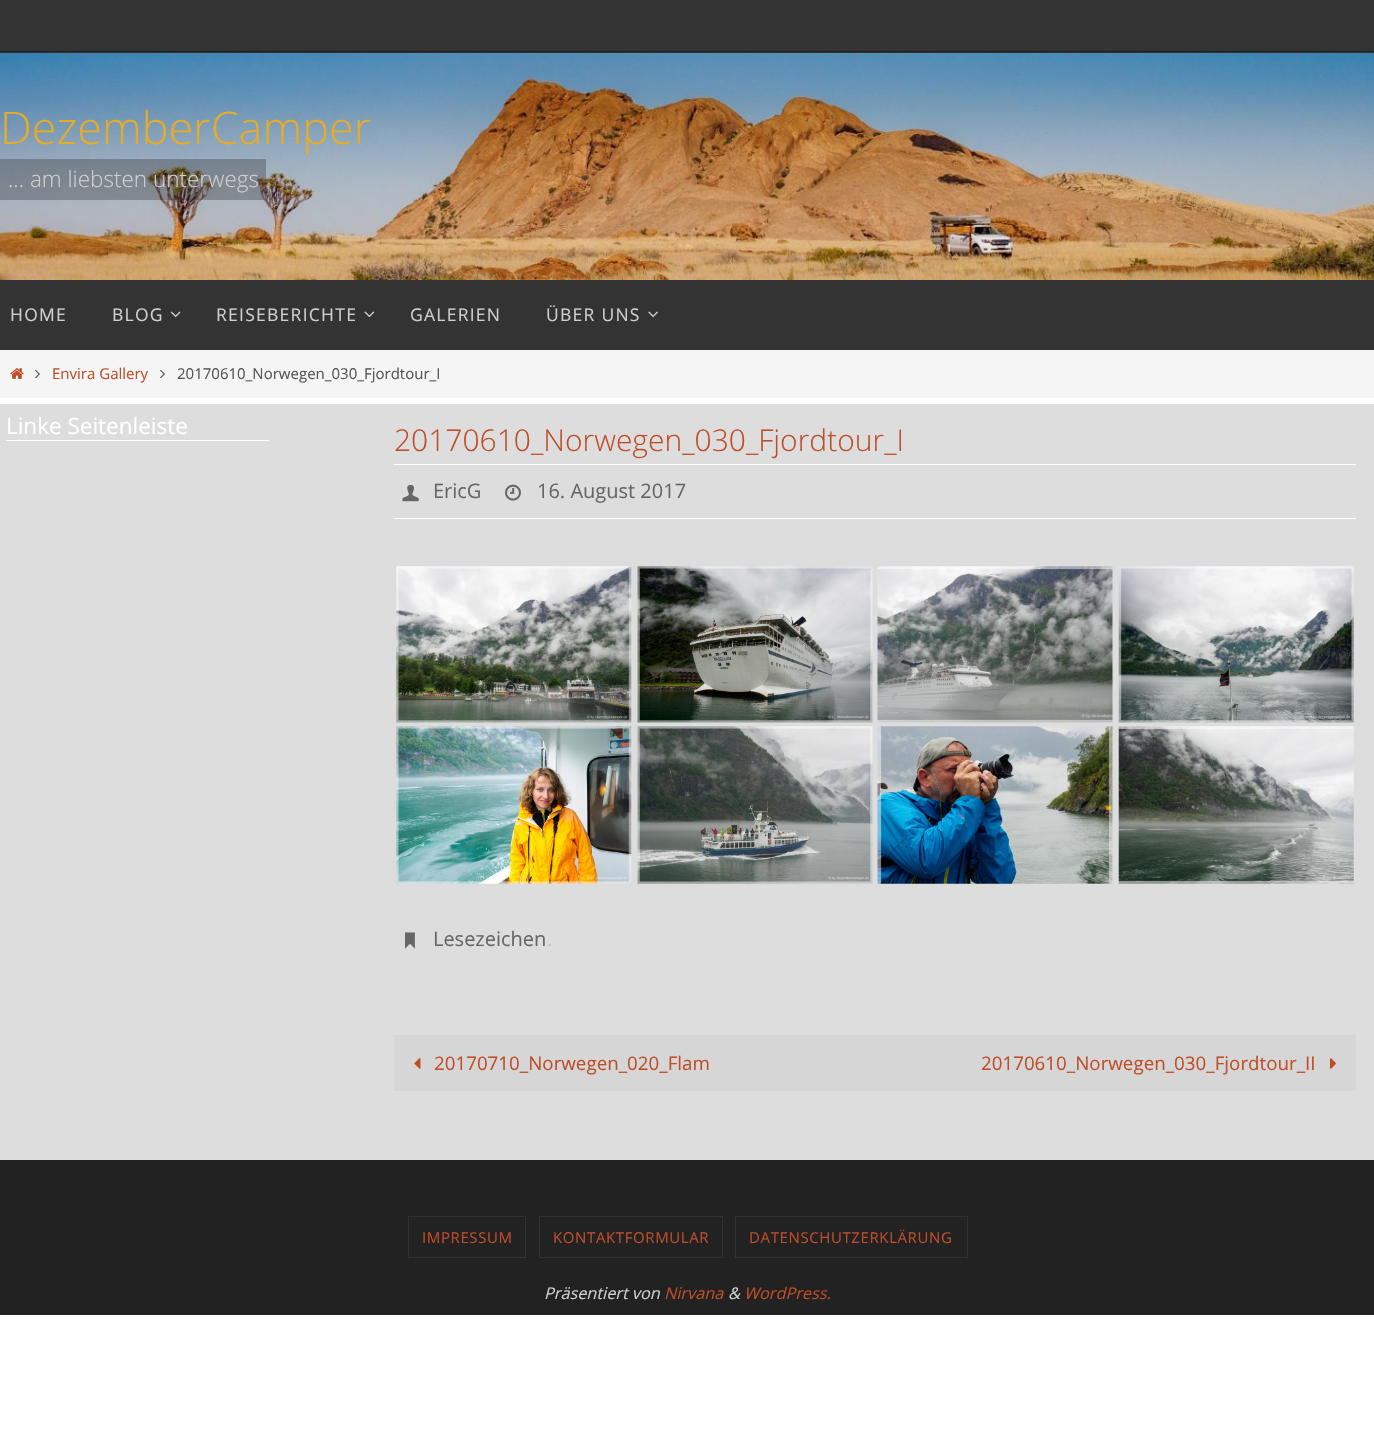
void draw(SkCanvas* canvas) {
    SkPaint paint;
    paint.setAntiAlias(true);
    auto spacedText = [&](const char* s, float x, float y, const SkFont& font, const SkPaint& ink, float letter, float word) {
        std::vector<SkGlyphID> glyphs(font.countText(s, strlen(s), SkTextEncoding::kUTF8));
        std::vector<float> xs(glyphs.size());
        font.textToGlyphs(s, strlen(s), SkTextEncoding::kUTF8, glyphs);
        font.getXPos(glyphs, xs, x);
        float extra = 0;
        for (size_t i = 0; i < glyphs.size(); i++) {
            xs[i] += extra;
            extra += letter + word * (glyphs[i] == font.unicharToGlyph(' '));
        }
        canvas->drawTextBlob(SkTextBlob::MakeFromPosHGlyphs(glyphs, xs, y, font), 0, 0, ink);
    };
    canvas->clear(0xFFFFFFFF);
    paint.setColor(0xFF333333);
    canvas->drawRect(SkRect::MakeXYWH(0, 0, 1374, 53), paint);
    paint.setColor(0xFF1F1F1F);
    canvas->drawRect(SkRect::MakeXYWH(0, 51, 1374, 1), paint);
    canvas->drawImageRect(SkImages::DeferredFromEncodedData(SkData::MakeFromFileName("img1.png")), SkRect::MakeXYWH(0, 53, 1374, 227), SkSamplingOptions());
    SkFont font1(fontMgr->matchFamilyStyle("Open Sans", SkFontStyle(300, SkFontStyle::kNormal_Width, SkFontStyle::kUpright_Slant)), 45);
    font1.setSubpixel(true);
    paint.setColor(0xFFE6AC27);
    canvas->drawString("DezemberCamper", 0, 144, font1, paint);
    paint.setColor(0x4D222222);
    canvas->drawRect(SkRect::MakeXYWH(0, 159, 266, 41), paint);
    SkFont font2(fontMgr->matchFamilyStyle("Open Sans", SkFontStyle(300, SkFontStyle::kNormal_Width, SkFontStyle::kUpright_Slant)), 22.5f);
    font2.setSubpixel(true);
    paint.setColor(0xFFD0D0D0);
    canvas->drawString("... am liebsten unterwegs", 8, 187, font2, paint);
    paint.setColor(0xFF333333);
    canvas->drawRect(SkRect::MakeXYWH(0, 280, 1374, 70), paint);
    SkFont font3(fontMgr->matchFamilyStyle("Open Sans", SkFontStyle::Normal()), 17.5f);
    font3.setSubpixel(true);
    paint.setColor(0xFFD0D0D0);
    spacedText("HOME", 10, 321, font3, paint, 1.25f, 0);
    spacedText("BLOG", 112, 321, font3, paint, 1.25f, 0);
    canvas->drawImageRect(SkImages::DeferredFromEncodedData(SkData::MakeFromFileName("img2.png")), SkRect::MakeXYWH(170, 311, 11, 7), SkSamplingOptions());
    spacedText("REISEBERICHTE", 216, 321, font3, paint, 1.25f, 0);
    canvas->drawImageRect(SkImages::DeferredFromEncodedData(SkData::MakeFromFileName("img3.png")), SkRect::MakeXYWH(364, 311, 11, 7), SkSamplingOptions());
    spacedText("GALERIEN", 410, 321, font3, paint, 1.25f, 0);
    spacedText("ÜBER UNS", 546, 321, font3, paint, 1.25f, 0);
    canvas->drawImageRect(SkImages::DeferredFromEncodedData(SkData::MakeFromFileName("img4.png")), SkRect::MakeXYWH(648, 311, 10, 7), SkSamplingOptions());
    paint.setColor(0xFFF5F5F5);
    canvas->drawRect(SkRect::MakeXYWH(0, 350, 1374, 48), paint);
    canvas->drawImageRect(SkImages::DeferredFromEncodedData(SkData::MakeFromFileName("img5.png")), SkRect::MakeXYWH(10, 368, 14, 11), SkSamplingOptions());
    canvas->drawImageRect(SkImages::DeferredFromEncodedData(SkData::MakeFromFileName("img6.png")), SkRect::MakeXYWH(35, 369, 5, 10), SkSamplingOptions());
    SkFont font4(fontMgr->matchFamilyStyle("Open Sans", SkFontStyle::Normal()), 15);
    font4.setSubpixel(true);
    paint.setColor(0xFFBF4D28);
    canvas->drawString("Envira Gallery", 52, 379, font4, paint);
    canvas->drawImageRect(SkImages::DeferredFromEncodedData(SkData::MakeFromFileName("img6.png")), SkRect::MakeXYWH(160, 369, 5, 10), SkSamplingOptions());
    paint.setColor(0xFF555555);
    canvas->drawString("20170610_Norwegen_030_Fjordtour_I", 177, 379, font4, paint);
    paint.setColor(0xFFDDDDDD);
    canvas->drawRect(SkRect::MakeXYWH(0, 404, 1374, 756), paint);
    paint.setColor(0xFFFFFFFF);
    canvas->drawRect(SkRect::MakeXYWH(6, 440, 263, 1), paint);
    SkFont font5(fontMgr->matchFamilyStyle("Open Sans", SkFontStyle::Normal()), 22.5f);
    font5.setSubpixel(true);
    canvas->drawString("Linke Seitenleiste", 6, 434, font5, paint);
    SkFont font6(fontMgr->matchFamilyStyle("Open Sans", SkFontStyle(300, SkFontStyle::kNormal_Width, SkFontStyle::kUpright_Slant)), 30);
    font6.setSubpixel(true);
    paint.setColor(0xFFBF4D28);
    canvas->drawString("20170610_Norwegen_030_Fjordtour_I", 394, 451, font6, paint);
    paint.setColor(0xFFFFFFFF);
    canvas->drawRect(SkRect::MakeXYWH(394, 464, 962, 1), paint);
    canvas->drawRect(SkRect::MakeXYWH(394, 518, 962, 1), paint);
    canvas->drawImageRect(SkImages::DeferredFromEncodedData(SkData::MakeFromFileName("img7.png")), SkRect::MakeXYWH(402, 484, 17, 18), SkSamplingOptions());
    SkFont font7(fontMgr->matchFamilyStyle("Open Sans", SkFontStyle::Normal()), 20);
    font7.setSubpixel(true);
    paint.setColor(0xFF666666);
    canvas->drawString("EricG", 433, 498, font7, paint);
    canvas->drawImageRect(SkImages::DeferredFromEncodedData(SkData::MakeFromFileName("img8.png")), SkRect::MakeXYWH(505, 484, 16, 17), SkSamplingOptions());
    canvas->drawString("16. August 2017", 537, 498, font7, paint);
    canvas->drawImageRect(SkImages::DeferredFromEncodedData(SkData::MakeFromFileName("img9.png")), SkRect::MakeXYWH(396, 566, 236, 157), SkSamplingOptions());
    canvas->drawImageRect(SkImages::DeferredFromEncodedData(SkData::MakeFromFileName("img10.png")), SkRect::MakeXYWH(637, 566, 236, 157), SkSamplingOptions());
    canvas->drawImageRect(SkImages::DeferredFromEncodedData(SkData::MakeFromFileName("img11.png")), SkRect::MakeXYWH(877, 566, 236, 157), SkSamplingOptions());
    canvas->drawImageRect(SkImages::DeferredFromEncodedData(SkData::MakeFromFileName("img12.png")), SkRect::MakeXYWH(1118, 566, 236, 157), SkSamplingOptions());
    canvas->drawImageRect(SkImages::DeferredFromEncodedData(SkData::MakeFromFileName("img13.png")), SkRect::MakeXYWH(396, 726, 236, 158), SkSamplingOptions());
    canvas->drawImageRect(SkImages::DeferredFromEncodedData(SkData::MakeFromFileName("img14.png")), SkRect::MakeXYWH(637, 726, 236, 158), SkSamplingOptions());
    canvas->drawImageRect(SkImages::DeferredFromEncodedData(SkData::MakeFromFileName("img15.png")), SkRect::MakeXYWH(877, 726, 236, 158), SkSamplingOptions());
    canvas->drawImageRect(SkImages::DeferredFromEncodedData(SkData::MakeFromFileName("img16.png")), SkRect::MakeXYWH(1118, 726, 236, 158), SkSamplingOptions());
    canvas->drawImageRect(SkImages::DeferredFromEncodedData(SkData::MakeFromFileName("img17.png")), SkRect::MakeXYWH(405, 932, 10, 17), SkSamplingOptions());
    canvas->drawString("Lesezeichen", 433, 946, font7, paint);
    paint.setColor(0xFFC1C1C1);
    canvas->drawString(".", 547, 946, font7, paint);
    paint.setColor(0xFFD6D6D6);
    canvas->drawRect(SkRect::MakeXYWH(394, 1035, 962, 56), paint);
    canvas->drawImageRect(SkImages::DeferredFromEncodedData(SkData::MakeFromFileName("img18.png")), SkRect::MakeXYWH(414, 1058, 7, 11), SkSamplingOptions());
    SkFont font8(fontMgr->matchFamilyStyle("Open Sans", SkFontStyle::Normal()), 18.75f);
    font8.setSubpixel(true);
    paint.setColor(0xFFBF4D28);
    canvas->drawString("20170710_Norwegen_020_Flam", 434, 1070, font8, paint);
    canvas->drawString("20170610_Norwegen_030_Fjordtour_II", 981, 1070, font8, paint);
    canvas->drawImageRect(SkImages::DeferredFromEncodedData(SkData::MakeFromFileName("img19.png")), SkRect::MakeXYWH(1330, 1058, 6, 11), SkSamplingOptions());
    paint.setColor(0xFF222222);
    canvas->drawRect(SkRect::MakeXYWH(0, 1160, 1374, 155), paint);
    paint.setStyle(SkPaint::kStroke_Style);
    paint.setStrokeWidth(1);
    paint.setColor(0xFF313131);
    canvas->drawRect(SkRect::MakeXYWH(408.5f, 1216.5f, 117, 41), paint);
    paint.setStyle(SkPaint::kFill_Style);
    paint.setColor(0xFFBF4D28);
    spacedText("IMPRESSUM", 422, 1243, font4, paint, 0.6f, 0);
    paint.setStyle(SkPaint::kStroke_Style);
    paint.setColor(0xFF313131);
    canvas->drawRect(SkRect::MakeXYWH(539.5f, 1216.5f, 183, 41), paint);
    paint.setStyle(SkPaint::kFill_Style);
    paint.setColor(0xFFBF4D28);
    spacedText("KONTAKTFORMULAR", 553, 1243, font4, paint, 0.6f, 0);
    paint.setStyle(SkPaint::kStroke_Style);
    paint.setColor(0xFF313131);
    canvas->drawRect(SkRect::MakeXYWH(735.5f, 1216.5f, 232, 41), paint);
    paint.setStyle(SkPaint::kFill_Style);
    paint.setColor(0xFFBF4D28);
    spacedText("DATENSCHUTZERKLÄRUNG", 749, 1243, font4, paint, 0.6f, 0);
    SkFont font9(fontMgr->matchFamilyStyle("Open Sans", SkFontStyle::Italic()), 16.25f);
    font9.setSubpixel(true);
    paint.setColor(0xFFD0D0D0);
    canvas->drawString("Präsentiert von", 544, 1299, font9, paint);
    paint.setColor(0xFFBF4D28);
    canvas->drawString("Nirvana", 664, 1299, font9, paint);
    paint.setColor(0xFFD0D0D0);
    canvas->drawString("&", 728, 1299, font9, paint);
    paint.setColor(0xFFBF4D28);
    canvas->drawString("WordPress.", 744, 1299, font9, paint);
}
